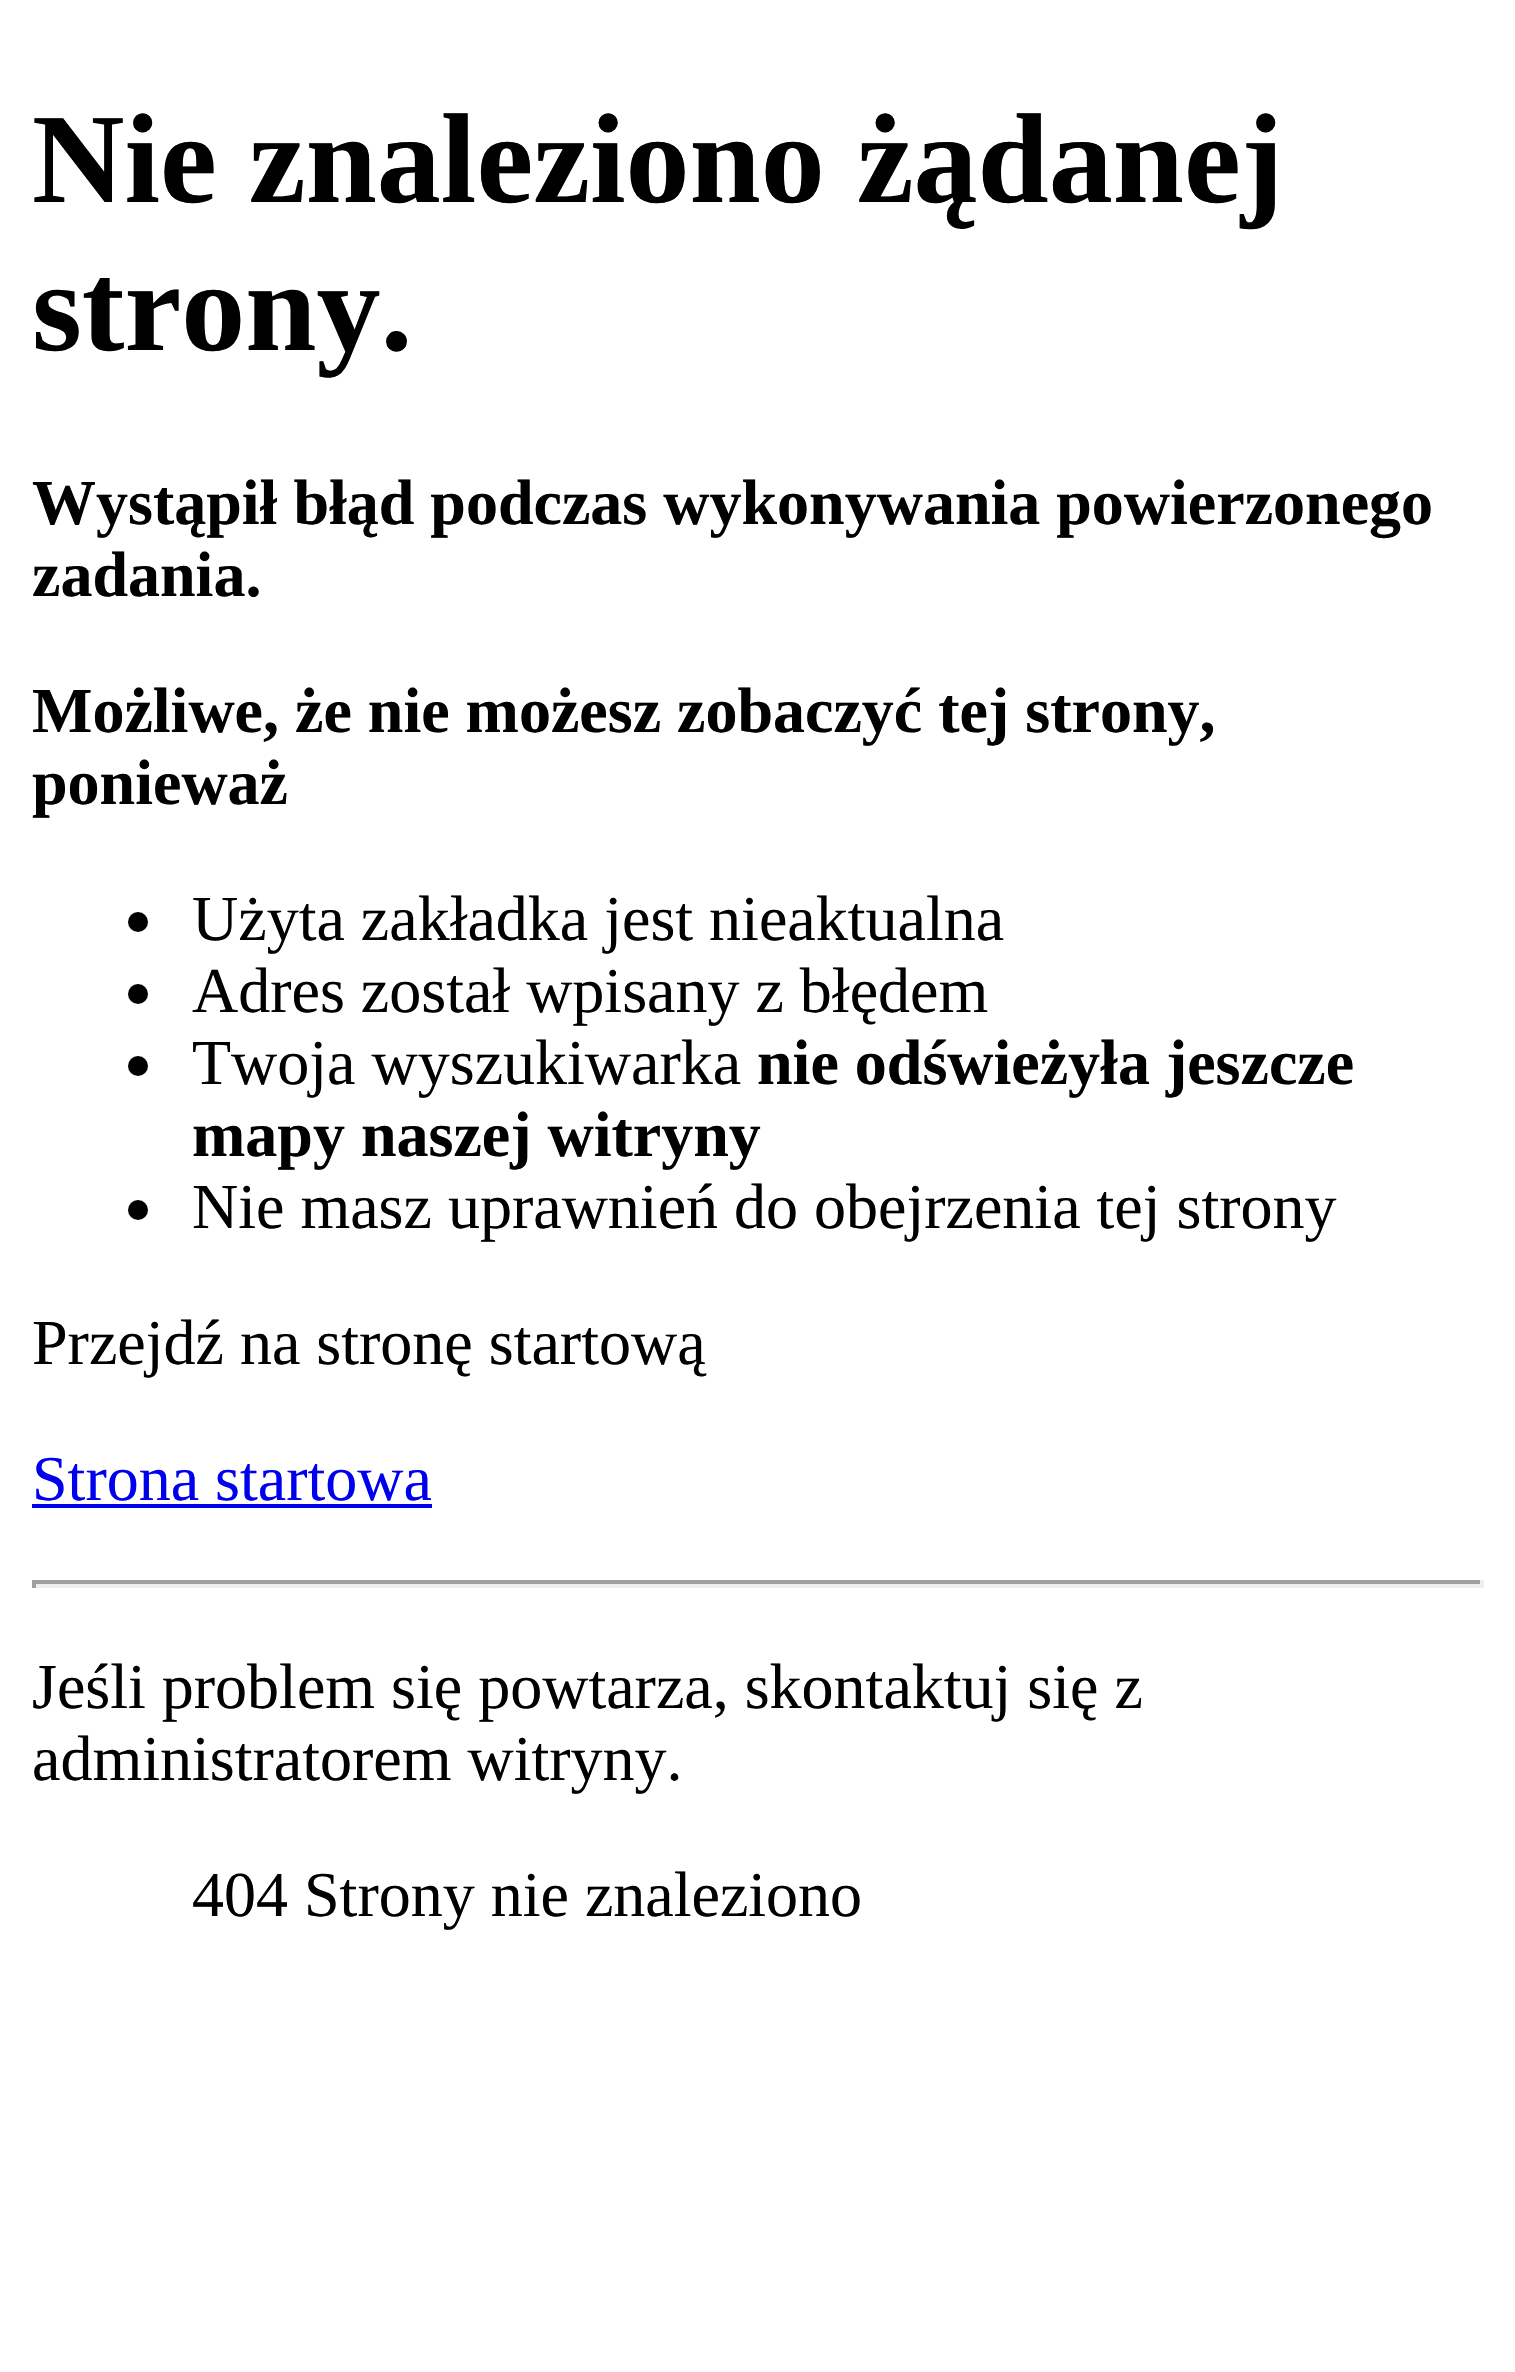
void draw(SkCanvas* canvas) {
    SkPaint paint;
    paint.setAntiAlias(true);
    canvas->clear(0xFFFFFFFF);
    SkFont font1(fontMgr->matchFamilyStyle("Liberation Serif", SkFontStyle::Bold()), 128);
    font1.setSubpixel(true);
    paint.setColor(0xFF000000);
    canvas->drawString("Nie znaleziono żądanej", 32, 202, font1, paint);
    canvas->drawString("strony.", 32, 350, font1, paint);
    SkFont font2(fontMgr->matchFamilyStyle("Liberation Serif", SkFontStyle::Bold()), 64);
    font2.setSubpixel(true);
    canvas->drawString("Wystąpił błąd podczas wykonywania powierzonego", 32, 524, font2, paint);
    canvas->drawString("zadania.", 32, 596, font2, paint);
    canvas->drawString("Możliwe, że nie możesz zobaczyć tej strony,", 32, 732, font2, paint);
    canvas->drawString("ponieważ", 32, 804, font2, paint);
    canvas->drawCircle(138, 922, 10, paint);
    SkFont font3(fontMgr->matchFamilyStyle("Liberation Serif", SkFontStyle::Normal()), 64);
    font3.setSubpixel(true);
    canvas->drawString("Użyta zakładka jest nieaktualna", 192, 940, font3, paint);
    canvas->drawCircle(138, 994, 10, paint);
    canvas->drawString("Adres został wpisany z błędem", 192, 1012, font3, paint);
    canvas->drawCircle(138, 1066, 10, paint);
    canvas->drawString("Twoja wyszukiwarka", 192, 1084, font3, paint);
    canvas->drawString("nie odświeżyła jeszcze", 757, 1084, font2, paint);
    canvas->drawString("mapy naszej witryny", 192, 1156, font2, paint);
    canvas->drawCircle(138, 1210, 10, paint);
    canvas->drawString("Nie masz uprawnień do obejrzenia tej strony", 192, 1228, font3, paint);
    canvas->drawString("Przejdź na stronę startową", 32, 1364, font3, paint);
    paint.setColor(0xFF0000EE);
    canvas->drawString("Strona startowa", 32, 1500, font3, paint);
    canvas->drawRect(SkRect::MakeXYWH(32, 1504, 400, 4), paint);
    paint.setColor(0xFF9F9F9F);
    canvas->drawRect(SkRect::MakeXYWH(32, 1580, 1452, 4), paint);
    paint.setColor(0xFFEEEEEE);
    canvas->drawRect(SkRect::MakeXYWH(1480, 1580, 4, 8), paint);
    canvas->drawRect(SkRect::MakeXYWH(32, 1584, 1452, 4), paint);
    paint.setColor(0xFF9F9F9F);
    canvas->drawRect(SkRect::MakeXYWH(32, 1580, 4, 8), paint);
    paint.setColor(0xFF000000);
    canvas->drawString("Jeśli problem się powtarza, skontaktuj się z", 32, 1708, font3, paint);
    canvas->drawString("administratorem witryny.", 32, 1780, font3, paint);
    canvas->drawString("404 Strony nie znaleziono", 192, 1916, font3, paint);
}
